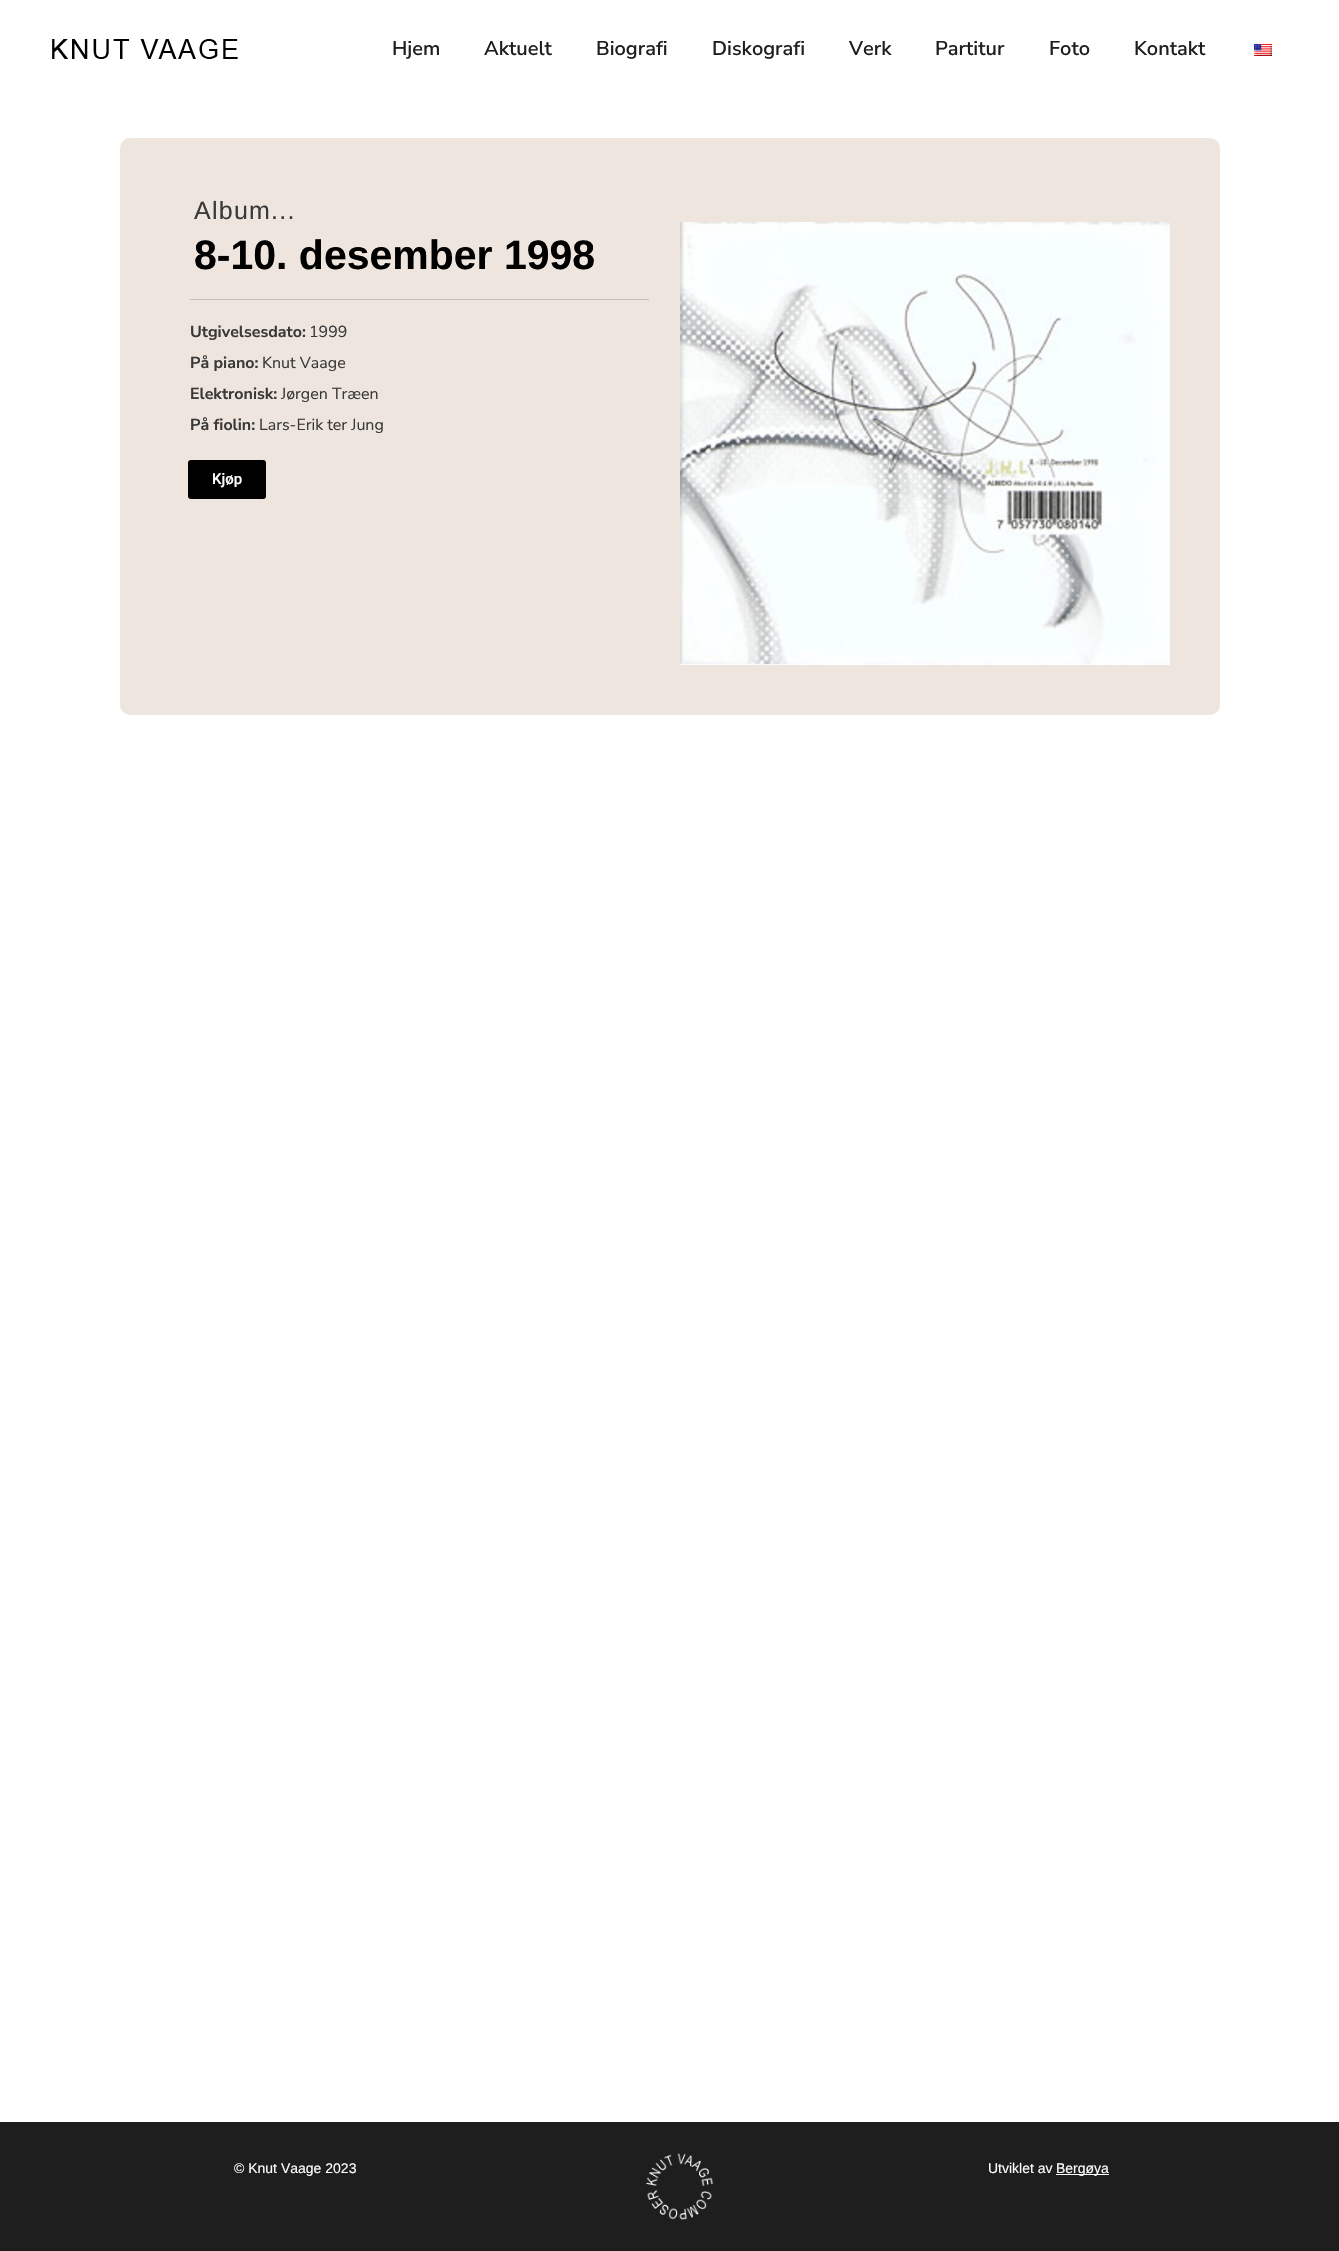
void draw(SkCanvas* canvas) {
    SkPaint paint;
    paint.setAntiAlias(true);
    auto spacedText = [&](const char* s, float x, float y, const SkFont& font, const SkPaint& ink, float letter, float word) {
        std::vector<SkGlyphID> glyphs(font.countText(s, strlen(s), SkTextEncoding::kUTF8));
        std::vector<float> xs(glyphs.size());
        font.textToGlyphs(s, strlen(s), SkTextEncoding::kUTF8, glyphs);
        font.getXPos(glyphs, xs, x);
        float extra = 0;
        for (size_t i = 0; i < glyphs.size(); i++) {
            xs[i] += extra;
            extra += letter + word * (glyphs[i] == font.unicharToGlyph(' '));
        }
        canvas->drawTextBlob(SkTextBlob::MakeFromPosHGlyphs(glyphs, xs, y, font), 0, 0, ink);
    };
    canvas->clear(0xFFFFFFFF);
    canvas->drawImageRect(SkImages::DeferredFromEncodedData(SkData::MakeFromFileName("img1.png")), SkRect::MakeXYWH(52, 39, 186, 20), SkSamplingOptions());
    SkFont font1(fontMgr->matchFamilyStyle("Nunito Sans", SkFontStyle(600, SkFontStyle::kNormal_Width, SkFontStyle::kUpright_Slant)), 20);
    font1.setSubpixel(true);
    paint.setColor(0xFF1E1E1E);
    canvas->drawString("Hjem", 392, 55, font1, paint);
    canvas->drawString("Aktuelt", 484, 55, font1, paint);
    canvas->drawString("Biografi", 596, 55, font1, paint);
    canvas->drawString("Diskografi", 712, 55, font1, paint);
    canvas->drawString("Verk", 849, 55, font1, paint);
    canvas->drawString("Partitur", 935, 55, font1, paint);
    canvas->drawString("Foto", 1049, 55, font1, paint);
    canvas->drawString("Kontakt", 1134, 55, font1, paint);
    canvas->drawImageRect(SkImages::DeferredFromEncodedData(SkData::MakeFromFileName("img2.png")), SkRect::MakeXYWH(1254, 44, 18, 12), SkSamplingOptions());
    paint.setColor(0xFFEEE6DE);
    canvas->drawRoundRect(SkRect::MakeXYWH(120, 138, 1100, 577), 10, 10, paint);
    SkFont font2(fontMgr->matchFamilyStyle("Liberation Sans", SkFontStyle::Normal()), 25);
    font2.setSubpixel(true);
    paint.setColor(0xFF393939);
    spacedText("Album...", 194, 219, font2, paint, 1.25f, 0);
    SkFont font3(fontMgr->matchFamilyStyle("Liberation Sans", SkFontStyle::Bold()), 41);
    font3.setSubpixel(true);
    paint.setColor(0xFF000000);
    canvas->drawString("8-10. desember 1998", 194, 269, font3, paint);
    paint.setColor(0xFFBDBDBD);
    canvas->drawRect(SkRect::MakeXYWH(190, 299, 459, 1), paint);
    SkFont font4(fontMgr->matchFamilyStyle("Nunito Sans", SkFontStyle::Bold()), 16);
    font4.setSubpixel(true);
    paint.setColor(0xFF393939);
    canvas->drawString("Utgivelsesdato:", 190, 337, font4, paint);
    SkFont font5(fontMgr->matchFamilyStyle("Nunito Sans", SkFontStyle::Normal()), 16);
    font5.setSubpixel(true);
    canvas->drawString("1999", 309, 337, font5, paint);
    canvas->drawString("På piano:", 190, 368, font4, paint);
    canvas->drawString("Knut Vaage", 262, 368, font5, paint);
    canvas->drawString("Elektronisk:", 190, 399, font4, paint);
    canvas->drawString("Jørgen Træen", 281, 399, font5, paint);
    canvas->drawString("På fiolin:", 190, 430, font4, paint);
    canvas->drawString("Lars-Erik ter Jung", 259, 430, font5, paint);
    paint.setColor(0xFF000000);
    canvas->drawRoundRect(SkRect::MakeXYWH(188, 460, 78, 39), 3, 3, paint);
    SkFont font6(fontMgr->matchFamilyStyle("Roboto", SkFontStyle(500, SkFontStyle::kNormal_Width, SkFontStyle::kUpright_Slant)), 15);
    font6.setSubpixel(true);
    paint.setColor(0xFFFFFFFF);
    canvas->drawString("Kjøp", 212, 484, font6, paint);
    canvas->drawImageRect(SkImages::DeferredFromEncodedData(SkData::MakeFromFileName("img3.png")), SkRect::MakeXYWH(680, 222, 490, 443), SkSamplingOptions());
    paint.setColor(0xFF1E1E1E);
    canvas->drawRect(SkRect::MakeXYWH(0, 2122, 1339, 129), paint);
    SkFont font7(fontMgr->matchFamilyStyle("Liberation Sans", SkFontStyle::Normal()), 14);
    font7.setSubpixel(true);
    paint.setColor(0xFFFFFFFF);
    canvas->drawString("© Knut Vaage 2023", 234, 2173, font7, paint);
    canvas->drawImageRect(SkImages::DeferredFromEncodedData(SkData::MakeFromFileName("img4.png")), SkRect::MakeXYWH(645, 2153, 69, 67), SkSamplingOptions());
    canvas->drawString("Utviklet av", 988, 2173, font7, paint);
    canvas->drawRect(SkRect::MakeXYWH(1056, 2174, 53, 1), paint);
    canvas->drawString("Bergøya", 1056, 2173, font7, paint);
}
